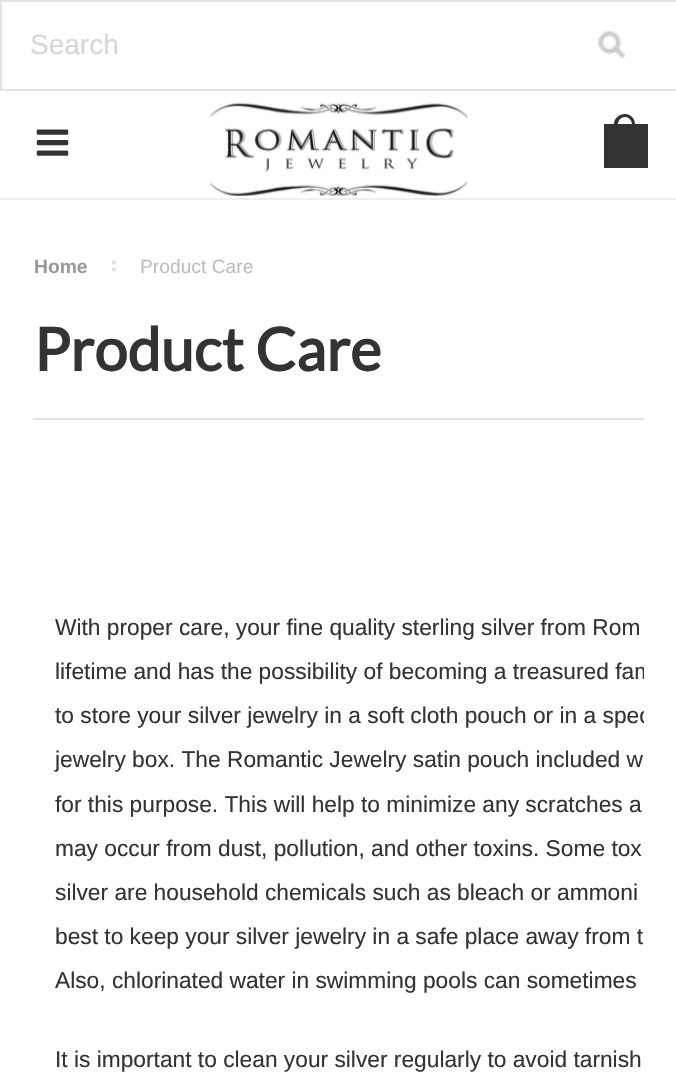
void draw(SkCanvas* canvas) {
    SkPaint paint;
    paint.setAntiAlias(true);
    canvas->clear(0xFFFFFFFF);
    paint.setColor(0xFFEFEFEF);
    canvas->drawRect(SkRect::MakeXYWH(0, 198, 676, 2), paint);
    paint.setStyle(SkPaint::kStroke_Style);
    paint.setStrokeWidth(2);
    paint.setColor(0xFFE3E3E3);
    canvas->drawRect(SkRect::MakeXYWH(1, 1, 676, 89), paint);
    SkFont font1(fontMgr->matchFamilyStyle("Liberation Sans", SkFontStyle::Normal()), 28);
    font1.setSubpixel(true);
    paint.setStyle(SkPaint::kFill_Style);
    paint.setColor(0xFFD6D6D6);
    canvas->drawString("Search", 30, 54, font1, paint);
    canvas->drawImageRect(SkImages::DeferredFromEncodedData(SkData::MakeFromFileName("img1.png")), SkRect::MakeXYWH(598, 31, 28, 28), SkSamplingOptions());
    canvas->drawImageRect(SkImages::DeferredFromEncodedData(SkData::MakeFromFileName("img2.png")), SkRect::MakeXYWH(36, 129, 33, 27), SkSamplingOptions());
    canvas->drawImageRect(SkImages::DeferredFromEncodedData(SkData::MakeFromFileName("img3.png")), SkRect::MakeXYWH(210, 102, 258, 94), SkSamplingOptions());
    paint.setColor(0xFF333333);
    canvas->drawPath(SkPathBuilder(SkPathFillType::kEvenOdd).moveTo(625, 114).cubicTo(630.5f, 114, 635, 118.5f, 635, 124).lineTo(614, 124).cubicTo(614, 118.5f, 619, 114, 625, 114).close().moveTo(625, 117).cubicTo(628.5f, 117, 632, 120.5f, 632, 124).lineTo(618, 124).cubicTo(618, 120.5f, 621, 117, 625, 117).close().detach(), paint);
    canvas->drawRect(SkRect::MakeXYWH(604, 124, 44, 44), paint);
    canvas->drawImageRect(SkImages::DeferredFromEncodedData(SkData::MakeFromFileName("img4.png")), SkRect::MakeXYWH(111, 260, 5, 12), SkSamplingOptions());
    SkFont font2(fontMgr->matchFamilyStyle("Liberation Sans", SkFontStyle::Bold()), 19.25f);
    font2.setSubpixel(true);
    paint.setColor(0xFF999999);
    canvas->drawString("Home", 34, 273, font2, paint);
    SkFont font3(fontMgr->matchFamilyStyle("Liberation Sans", SkFontStyle::Normal()), 19.25f);
    font3.setSubpixel(true);
    paint.setColor(0xFFBEBEBE);
    canvas->drawString("Product Care", 140, 273, font3, paint);
    paint.setColor(0xFFE3E3E3);
    canvas->drawRect(SkRect::MakeXYWH(33, 418, 611, 2), paint);
    SkFont font4(fontMgr->matchFamilyStyle("Lato", SkFontStyle::Bold()), 59.5f);
    font4.setSubpixel(true);
    paint.setColor(0xFF333333);
    canvas->drawString("Product Care", 34, 371, font4, paint);
    SkFont font5(fontMgr->matchFamilyStyle("Liberation Sans", SkFontStyle::Normal()), 22.75f);
    font5.setSubpixel(true);
    canvas->drawString("With proper care, your fine quality sterling silver from Rom", 55, 635, font5, paint);
    canvas->save();
    canvas->clipRect(SkRect::MakeXYWH(33, 455, 611, 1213));
    canvas->drawString("lifetime and has the possibility of becoming a treasured fam", 55, 679, font5, paint);
    canvas->drawString("to store your silver jewelry in a soft cloth pouch or in a spec", 55, 723, font5, paint);
    canvas->restore();
    canvas->drawString("jewelry box. The Romantic Jewelry satin pouch included w", 55, 767, font5, paint);
    canvas->drawString("for this purpose. This will help to minimize any scratches a", 55, 812, font5, paint);
    canvas->drawString("may occur from dust, pollution, and other toxins. Some tox", 55, 856, font5, paint);
    canvas->drawString("silver are household chemicals such as bleach or ammoni", 55, 900, font5, paint);
    canvas->drawString("best to keep your silver jewelry in a safe place away from t", 55, 944, font5, paint);
    canvas->drawString("Also, chlorinated water in swimming pools can sometimes", 55, 988, font5, paint);
    canvas->drawString("It is important to clean your silver regularly to avoid tarnish", 55, 1067, font5, paint);
}
